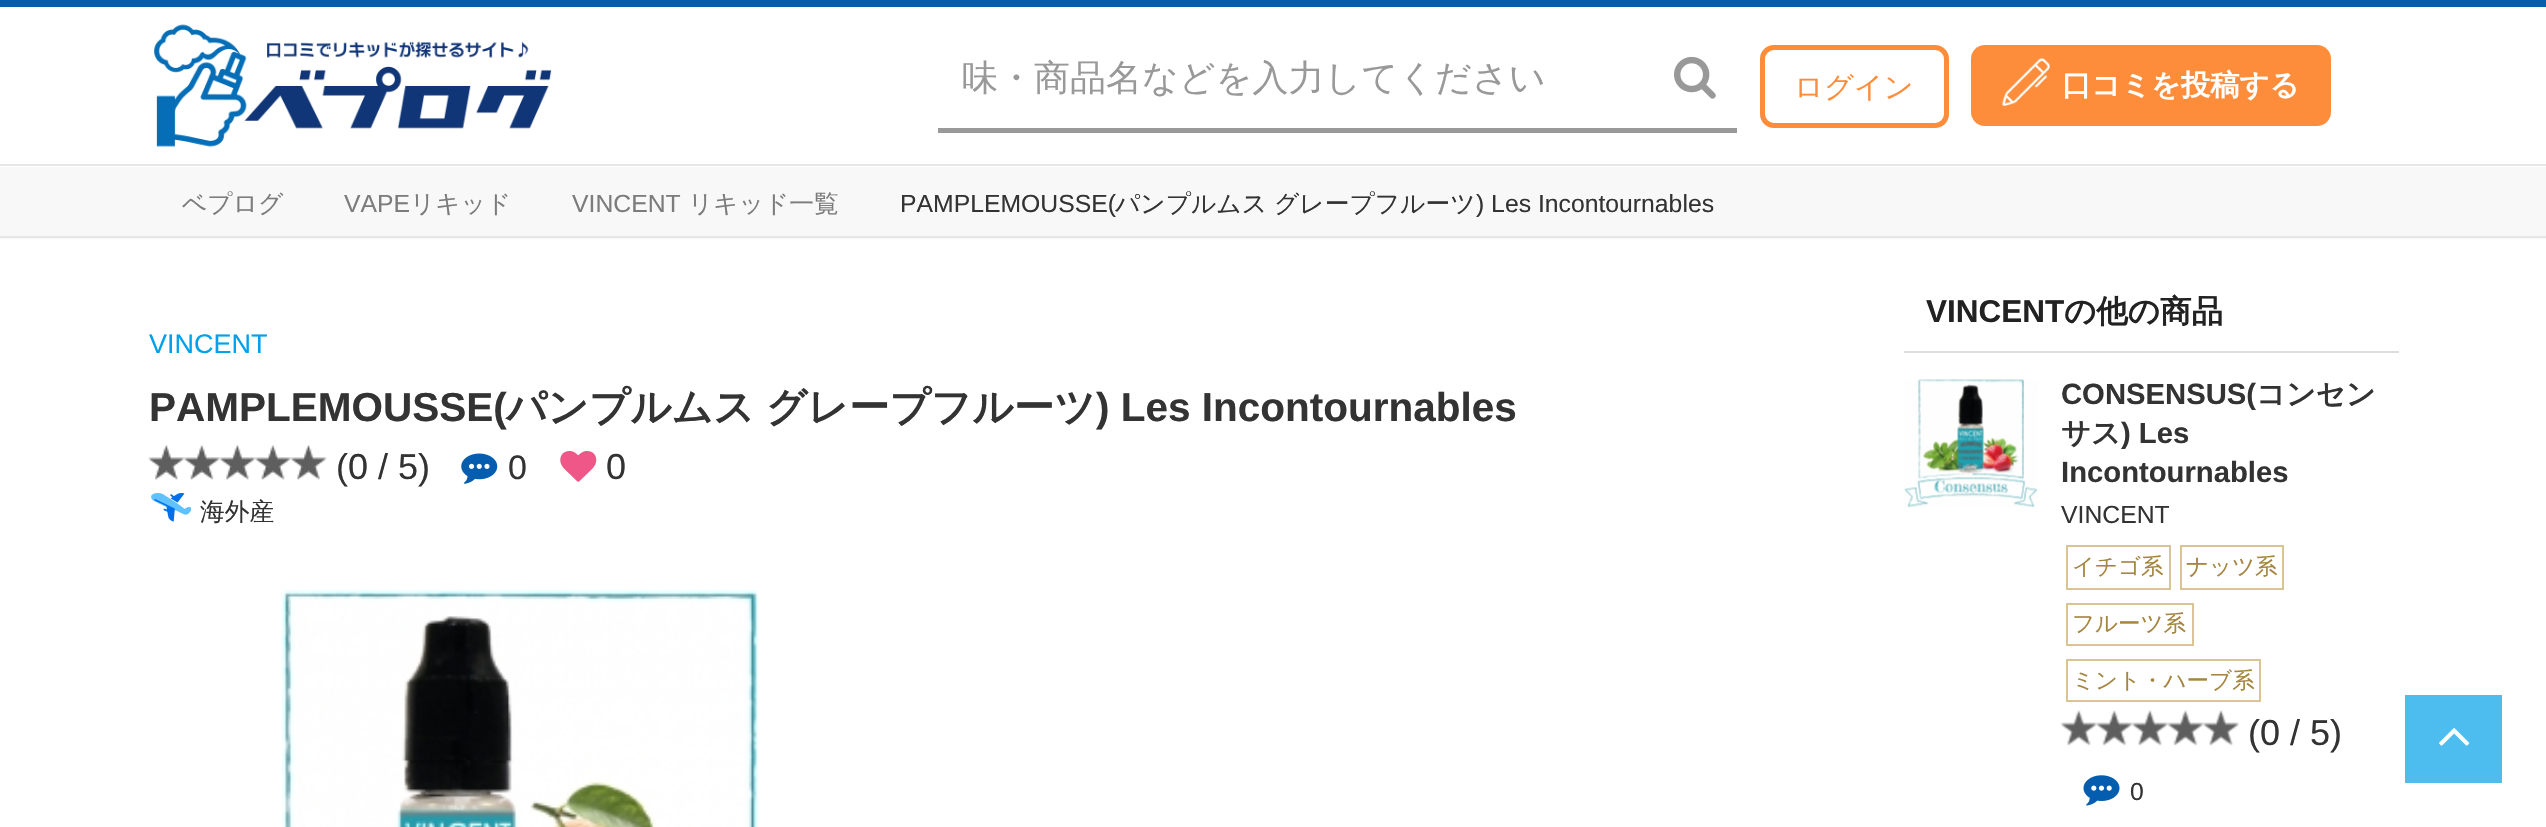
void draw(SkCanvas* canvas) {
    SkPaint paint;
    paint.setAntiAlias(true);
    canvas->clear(0xFFFFFFFF);
    paint.setColor(0xFF045DAF);
    canvas->drawRect(SkRect::MakeXYWH(0, 0, 2546, 7), paint);
    paint.setColor(0xFFE6E6E6);
    canvas->drawRect(SkRect::MakeXYWH(0, 164, 2546, 2), paint);
    canvas->drawImageRect(SkImages::DeferredFromEncodedData(SkData::MakeFromFileName("img1.png")), SkRect::MakeXYWH(154, 24, 398, 123), SkSamplingOptions());
    paint.setColor(0xFF999999);
    canvas->drawRect(SkRect::MakeXYWH(938, 128, 799, 5), paint);
    SkFont font1(fontMgr->matchFamilyStyle("WenQuanYi Zen Hei", SkFontStyle(500, SkFontStyle::kNormal_Width, SkFontStyle::kUpright_Slant)), 36);
    font1.setSubpixel(true);
    canvas->drawString("味・商品名などを入力してください", 962, 90, font1, paint);
    canvas->drawImageRect(SkImages::DeferredFromEncodedData(SkData::MakeFromFileName("img2.png")), SkRect::MakeXYWH(1674, 56, 42, 43), SkSamplingOptions());
    paint.setStyle(SkPaint::kStroke_Style);
    paint.setStrokeWidth(5);
    paint.setColor(0xFFFE8D3B);
    canvas->drawRoundRect(SkRect::MakeXYWH(1762.5f, 47.5f, 184, 78), 11.5f, 11.5f, paint);
    SkFont font2(fontMgr->matchFamilyStyle("WenQuanYi Zen Hei", SkFontStyle(500, SkFontStyle::kNormal_Width, SkFontStyle::kUpright_Slant)), 29.25f);
    font2.setSubpixel(true);
    paint.setStyle(SkPaint::kFill_Style);
    canvas->drawString("ログイン", 1794, 97, font2, paint);
    canvas->drawRoundRect(SkRect::MakeXYWH(1971, 45, 360, 81), 14, 14, paint);
    canvas->drawImageRect(SkImages::DeferredFromEncodedData(SkData::MakeFromFileName("img3.png")), SkRect::MakeXYWH(2002, 58, 48, 48), SkSamplingOptions());
    SkFont font3(fontMgr->matchFamilyStyle("WenQuanYi Zen Hei", SkFontStyle::Bold()), 29.25f);
    font3.setSubpixel(true);
    paint.setColor(0xFFFFFFFF);
    canvas->drawString("口コミを投稿する", 2062, 95, font3, paint);
    paint.setColor(0xFFF8F8F8);
    canvas->drawRect(SkRect::MakeXYWH(0, 167, 2546, 72), paint);
    paint.setColor(0xFFE6E6E6);
    canvas->drawRect(SkRect::MakeXYWH(0, 236, 2546, 2), paint);
    SkFont font4(fontMgr->matchFamilyStyle("WenQuanYi Zen Hei", SkFontStyle(500, SkFontStyle::kNormal_Width, SkFontStyle::kUpright_Slant)), 24.75f);
    font4.setSubpixel(true);
    paint.setColor(0xFF7C7C7C);
    canvas->drawString("ベプログ", 182, 212, font4, paint);
    SkFont font5(fontMgr->matchFamilyStyle("Liberation Sans", SkFontStyle::Normal()), 24.75f);
    font5.setSubpixel(true);
    canvas->drawString("VAPE", 344, 212, font5, paint);
    canvas->drawString("リキッド", 410, 212, font4, paint);
    canvas->drawString("VINCENT", 572, 212, font5, paint);
    canvas->drawString("リキッド一覧", 688, 212, font4, paint);
    paint.setColor(0xFF333333);
    canvas->drawString("PAMPLEMOUSSE(", 900, 212, font5, paint);
    canvas->drawString("パンプルムス", 1115, 212, font4, paint);
    canvas->drawString("グレープフルーツ", 1274, 212, font4, paint);
    canvas->drawString(") Les Incontournables", 1476, 212, font5, paint);
    SkFont font6(fontMgr->matchFamilyStyle("Liberation Sans", SkFontStyle::Normal()), 27);
    font6.setSubpixel(true);
    paint.setColor(0xFF00A0EA);
    canvas->drawString("VINCENT", 149, 353, font6, paint);
    SkFont font7(fontMgr->matchFamilyStyle("Liberation Sans", SkFontStyle::Bold()), 40.5f);
    font7.setSubpixel(true);
    paint.setColor(0xFF333333);
    canvas->drawString("PAMPLEMOUSSE(", 149, 421, font7, paint);
    SkFont font8(fontMgr->matchFamilyStyle("WenQuanYi Zen Hei", SkFontStyle::Bold()), 40.5f);
    font8.setSubpixel(true);
    canvas->drawString("パンプルムス", 506, 421, font8, paint);
    canvas->drawString("グレープフルーツ", 766, 421, font8, paint);
    canvas->drawString(") Les Incontournables", 1096, 421, font7, paint);
    canvas->drawImageRect(SkImages::DeferredFromEncodedData(SkData::MakeFromFileName("img4.png")), SkRect::MakeXYWH(148, 445, 179, 35), SkSamplingOptions());
    SkFont font9(fontMgr->matchFamilyStyle("Liberation Sans", SkFontStyle::Normal()), 36);
    font9.setSubpixel(true);
    canvas->drawString("(0 / 5)", 336, 479, font9, paint);
    canvas->drawImageRect(SkImages::DeferredFromEncodedData(SkData::MakeFromFileName("img5.png")), SkRect::MakeXYWH(461, 453, 37, 31), SkSamplingOptions());
    SkFont font10(fontMgr->matchFamilyStyle("Liberation Sans", SkFontStyle::Normal()), 34);
    font10.setSubpixel(true);
    canvas->drawString("0", 508, 479, font10, paint);
    canvas->drawImageRect(SkImages::DeferredFromEncodedData(SkData::MakeFromFileName("img6.png")), SkRect::MakeXYWH(560, 451, 37, 31), SkSamplingOptions());
    canvas->drawString("0", 606, 479, font9, paint);
    canvas->drawImageRect(SkImages::DeferredFromEncodedData(SkData::MakeFromFileName("img7.png")), SkRect::MakeXYWH(151, 493, 40, 29), SkSamplingOptions());
    canvas->drawString("海外産", 200, 520, font4, paint);
    canvas->drawImageRect(SkImages::DeferredFromEncodedData(SkData::MakeFromFileName("img8.png")), SkRect::MakeXYWH(281, 589, 478, 238), SkSamplingOptions());
    paint.setColor(0xFFDDDDDD);
    canvas->drawRect(SkRect::MakeXYWH(1904, 351, 495, 2), paint);
    SkFont font11(fontMgr->matchFamilyStyle("Liberation Sans", SkFontStyle::Bold()), 31.5f);
    font11.setSubpixel(true);
    paint.setColor(0xFF222222);
    canvas->drawString("VINCENT", 1926, 322, font11, paint);
    SkFont font12(fontMgr->matchFamilyStyle("WenQuanYi Zen Hei", SkFontStyle::Bold()), 31.5f);
    font12.setSubpixel(true);
    canvas->drawString("の他の商品", 2064, 322, font12, paint);
    canvas->drawImageRect(SkImages::DeferredFromEncodedData(SkData::MakeFromFileName("img9.png")), SkRect::MakeXYWH(1904, 379, 134, 129), SkSamplingOptions());
    SkFont font13(fontMgr->matchFamilyStyle("Liberation Sans", SkFontStyle::Bold()), 29.25f);
    font13.setSubpixel(true);
    paint.setColor(0xFF333333);
    canvas->drawString("CONSENSUS(", 2061, 404, font13, paint);
    canvas->drawString("コンセン", 2256, 404, font3, paint);
    canvas->drawString("サス", 2061, 443, font3, paint);
    canvas->drawString(") Les", 2121, 443, font13, paint);
    canvas->drawString("Incontournables", 2061, 482, font13, paint);
    canvas->drawString("VINCENT", 2061, 523, font5, paint);
    paint.setStyle(SkPaint::kStroke_Style);
    paint.setStrokeWidth(2);
    paint.setColor(0xFFDAC494);
    canvas->drawRect(SkRect::MakeXYWH(2067, 546, 103, 43), paint);
    SkFont font14(fontMgr->matchFamilyStyle("WenQuanYi Zen Hei", SkFontStyle(500, SkFontStyle::kNormal_Width, SkFontStyle::kUpright_Slant)), 22.5f);
    font14.setSubpixel(true);
    paint.setStyle(SkPaint::kFill_Style);
    paint.setColor(0xFFA58540);
    canvas->drawString("イチゴ系", 2072, 574, font14, paint);
    paint.setStyle(SkPaint::kStroke_Style);
    paint.setColor(0xFFDAC494);
    canvas->drawRect(SkRect::MakeXYWH(2181, 546, 102, 43), paint);
    paint.setStyle(SkPaint::kFill_Style);
    paint.setColor(0xFFA58540);
    canvas->drawString("ナッツ系", 2186, 574, font14, paint);
    paint.setStyle(SkPaint::kStroke_Style);
    paint.setColor(0xFFDAC494);
    canvas->drawRect(SkRect::MakeXYWH(2067, 604, 126, 41), paint);
    paint.setStyle(SkPaint::kFill_Style);
    paint.setColor(0xFFA58540);
    canvas->drawString("フルーツ系", 2072, 631, font14, paint);
    paint.setStyle(SkPaint::kStroke_Style);
    paint.setColor(0xFFDAC494);
    canvas->drawRect(SkRect::MakeXYWH(2067, 660, 193, 41), paint);
    paint.setStyle(SkPaint::kFill_Style);
    paint.setColor(0xFFA58540);
    canvas->drawString("ミント・ハーブ系", 2072, 688, font14, paint);
    canvas->drawImageRect(SkImages::DeferredFromEncodedData(SkData::MakeFromFileName("img10.png")), SkRect::MakeXYWH(2060, 710, 179, 36), SkSamplingOptions());
    paint.setColor(0xFF333333);
    canvas->drawString("(0 / 5)", 2248, 745, font9, paint);
    canvas->drawImageRect(SkImages::DeferredFromEncodedData(SkData::MakeFromFileName("img11.png")), SkRect::MakeXYWH(2083, 775, 37, 31), SkSamplingOptions());
    canvas->drawString("0", 2130, 800, font5, paint);
    paint.setColor(0xFF4DBDF0);
    canvas->drawRect(SkRect::MakeXYWH(2405, 695, 97, 88), paint);
    canvas->drawImageRect(SkImages::DeferredFromEncodedData(SkData::MakeFromFileName("img12.png")), SkRect::MakeXYWH(2439, 728, 31, 18), SkSamplingOptions());
}
